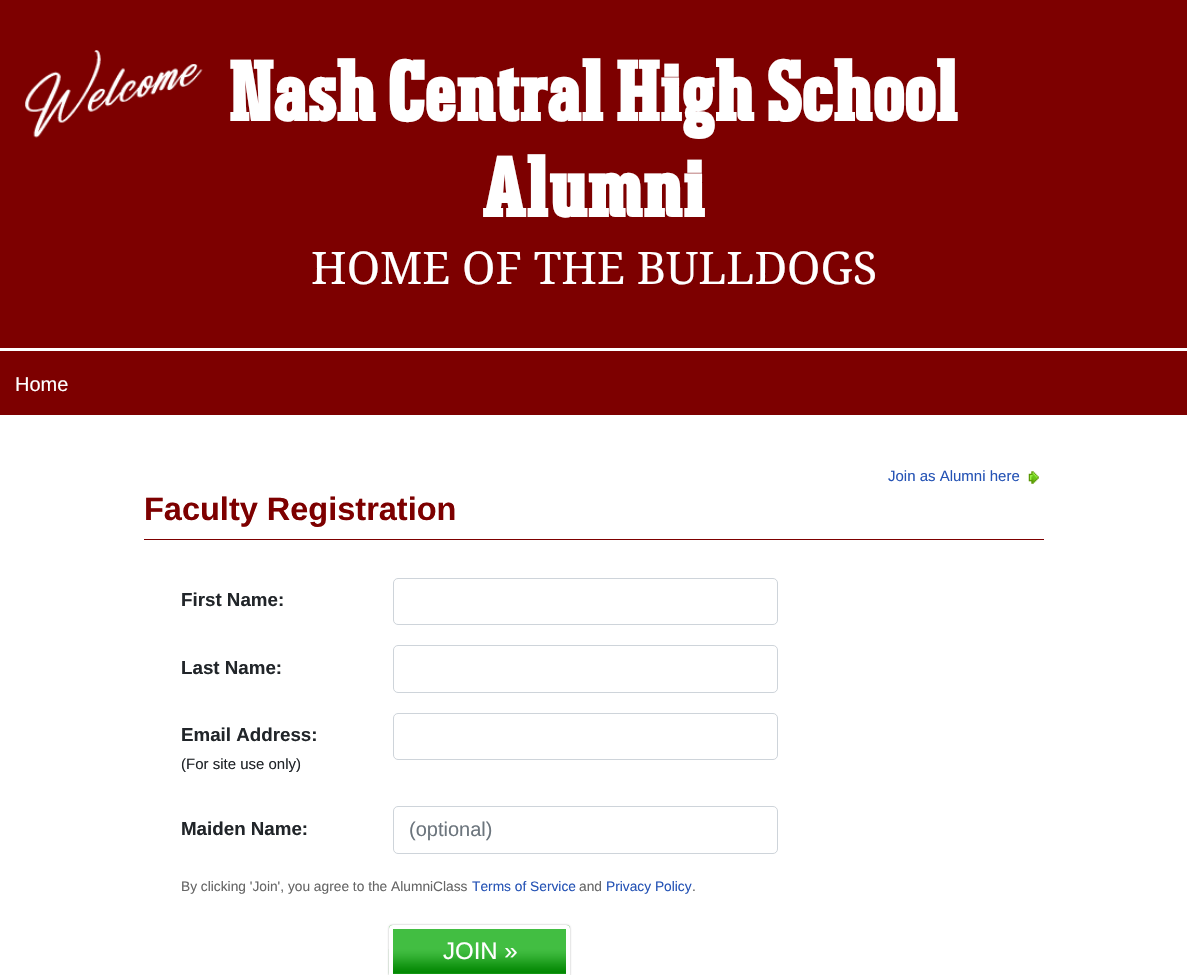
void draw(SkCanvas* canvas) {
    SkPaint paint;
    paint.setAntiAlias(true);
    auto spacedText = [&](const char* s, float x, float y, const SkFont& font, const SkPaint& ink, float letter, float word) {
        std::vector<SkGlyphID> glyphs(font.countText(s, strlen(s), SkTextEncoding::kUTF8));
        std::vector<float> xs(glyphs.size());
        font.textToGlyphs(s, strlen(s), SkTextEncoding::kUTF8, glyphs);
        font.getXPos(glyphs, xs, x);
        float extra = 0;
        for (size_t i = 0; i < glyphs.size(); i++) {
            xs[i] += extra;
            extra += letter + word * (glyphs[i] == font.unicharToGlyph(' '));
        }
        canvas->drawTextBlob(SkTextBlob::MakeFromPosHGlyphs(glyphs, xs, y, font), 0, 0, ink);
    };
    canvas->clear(0xFFFFFFFF);
    paint.setColor(0xFF7D0000);
    canvas->drawRect(SkRect::MakeXYWH(0, 0, 1187, 348), paint);
    canvas->drawImageRect(SkImages::DeferredFromEncodedData(SkData::MakeFromFileName("img1.png")), SkRect::MakeXYWH(25, 50, 178, 88), SkSamplingOptions());
    SkFont font1(fontMgr->matchFamilyStyle("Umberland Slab", SkFontStyle::Bold()), 80);
    font1.setSubpixel(true);
    paint.setColor(0xFFFFFFFF);
    spacedText("Nash Central High School", 229, 121, font1, paint, 1.25f, 0);
    spacedText("Alumni", 482, 217, font1, paint, 1.25f, 0);
    SkFont font2(fontMgr->matchFamilyStyle("Droid Serif", SkFontStyle::Normal()), 45);
    font2.setSubpixel(true);
    canvas->drawString("HOME OF THE BULLDOGS", 311, 284, font2, paint);
    paint.setColor(0xFF7D0000);
    canvas->drawRect(SkRect::MakeXYWH(0, 351, 1187, 64), paint);
    SkFont font3(fontMgr->matchFamilyStyle("Liberation Sans", SkFontStyle::Normal()), 20);
    font3.setSubpixel(true);
    paint.setColor(0xFFFFFFFF);
    canvas->drawString("Home", 15, 391, font3, paint);
    SkFont font4(fontMgr->matchFamilyStyle("Liberation Sans", SkFontStyle::Normal()), 15);
    font4.setSubpixel(true);
    paint.setColor(0xFF2553B5);
    canvas->drawString("Join as Alumni here", 888, 481, font4, paint);
    canvas->drawImageRect(SkImages::DeferredFromEncodedData(SkData::MakeFromFileName("img2.png")), SkRect::MakeXYWH(1028, 471, 11, 13), SkSamplingOptions());
    paint.setColor(0xFF7D0000);
    canvas->drawRect(SkRect::MakeXYWH(144, 539, 900, 1), paint);
    SkFont font5(fontMgr->matchFamilyStyle("Liberation Sans", SkFontStyle::Bold()), 32.5f);
    font5.setSubpixel(true);
    canvas->drawString("Faculty Registration", 144, 520, font5, paint);
    SkFont font6(fontMgr->matchFamilyStyle("Liberation Sans", SkFontStyle::Bold()), 18.75f);
    font6.setSubpixel(true);
    paint.setColor(0xFF212529);
    canvas->drawString("First Name:", 181, 606, font6, paint);
    paint.setStyle(SkPaint::kStroke_Style);
    paint.setStrokeWidth(1);
    paint.setColor(0xFFCED4DA);
    canvas->drawRoundRect(SkRect::MakeXYWH(393.5f, 578.5f, 384, 46), 4.5f, 4.5f, paint);
    paint.setStyle(SkPaint::kFill_Style);
    paint.setColor(0xFF212529);
    canvas->drawString("Last Name:", 181, 674, font6, paint);
    paint.setStyle(SkPaint::kStroke_Style);
    paint.setColor(0xFFCED4DA);
    canvas->drawRoundRect(SkRect::MakeXYWH(393.5f, 645.5f, 384, 47), 4.5f, 4.5f, paint);
    paint.setStyle(SkPaint::kFill_Style);
    paint.setColor(0xFF212529);
    canvas->drawString("Email Address:", 181, 741, font6, paint);
    canvas->drawString("(For site use only)", 181, 769, font4, paint);
    paint.setStyle(SkPaint::kStroke_Style);
    paint.setColor(0xFFCED4DA);
    canvas->drawRoundRect(SkRect::MakeXYWH(393.5f, 713.5f, 384, 46), 4.5f, 4.5f, paint);
    paint.setStyle(SkPaint::kFill_Style);
    paint.setColor(0xFF212529);
    canvas->drawString("Maiden Name:", 181, 835, font6, paint);
    paint.setStyle(SkPaint::kStroke_Style);
    paint.setColor(0xFFCED4DA);
    canvas->drawRoundRect(SkRect::MakeXYWH(393.5f, 806.5f, 384, 47), 4.5f, 4.5f, paint);
    paint.setStyle(SkPaint::kFill_Style);
    paint.setColor(0xFF6C757D);
    canvas->drawString("(optional)", 409, 836, font3, paint);
    SkFont font7(fontMgr->matchFamilyStyle("Liberation Sans", SkFontStyle::Normal()), 13.75f);
    font7.setSubpixel(true);
    paint.setColor(0xFF666666);
    canvas->drawString("By clicking 'Join', you agree to the AlumniClass", 181, 891, font7, paint);
    paint.setColor(0xFF2553B5);
    canvas->drawString("Terms of Service", 472, 891, font7, paint);
    paint.setColor(0xFF666666);
    canvas->drawString("and", 579, 891, font7, paint);
    paint.setColor(0xFF2553B5);
    canvas->drawString("Privacy Policy", 606, 891, font7, paint);
    paint.setColor(0xFF666666);
    canvas->drawString(".", 692, 891, font7, paint);
    paint.setColor(0xFFAAAAAA);
    paint.setMaskFilter(SkMaskFilter::MakeBlur(kNormal_SkBlurStyle, 1));
    canvas->drawRoundRect(SkRect::MakeXYWH(389, 925, 181, 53), 4, 4, paint);
    paint.setMaskFilter(nullptr);
    paint.setColor(0xFF42BE42);
    canvas->drawRoundRect(SkRect::MakeXYWH(389, 925, 181, 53), 4, 4, paint);
    canvas->drawImageRect(SkImages::DeferredFromEncodedData(SkData::MakeFromFileName("img3.png")), SkRect::MakeXYWH(388, 949, 178, 25), SkSamplingOptions());
    paint.setStyle(SkPaint::kStroke_Style);
    paint.setStrokeWidth(4);
    paint.setColor(0xFFFFFFFF);
    canvas->drawRoundRect(SkRect::MakeXYWH(391, 927, 177, 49), 2, 2, paint);
    SkFont font8(fontMgr->matchFamilyStyle("Liberation Sans", SkFontStyle::Normal()), 24);
    font8.setSubpixel(true);
    paint.setStyle(SkPaint::kFill_Style);
    canvas->drawString("JOIN »", 443, 959, font8, paint);
}
